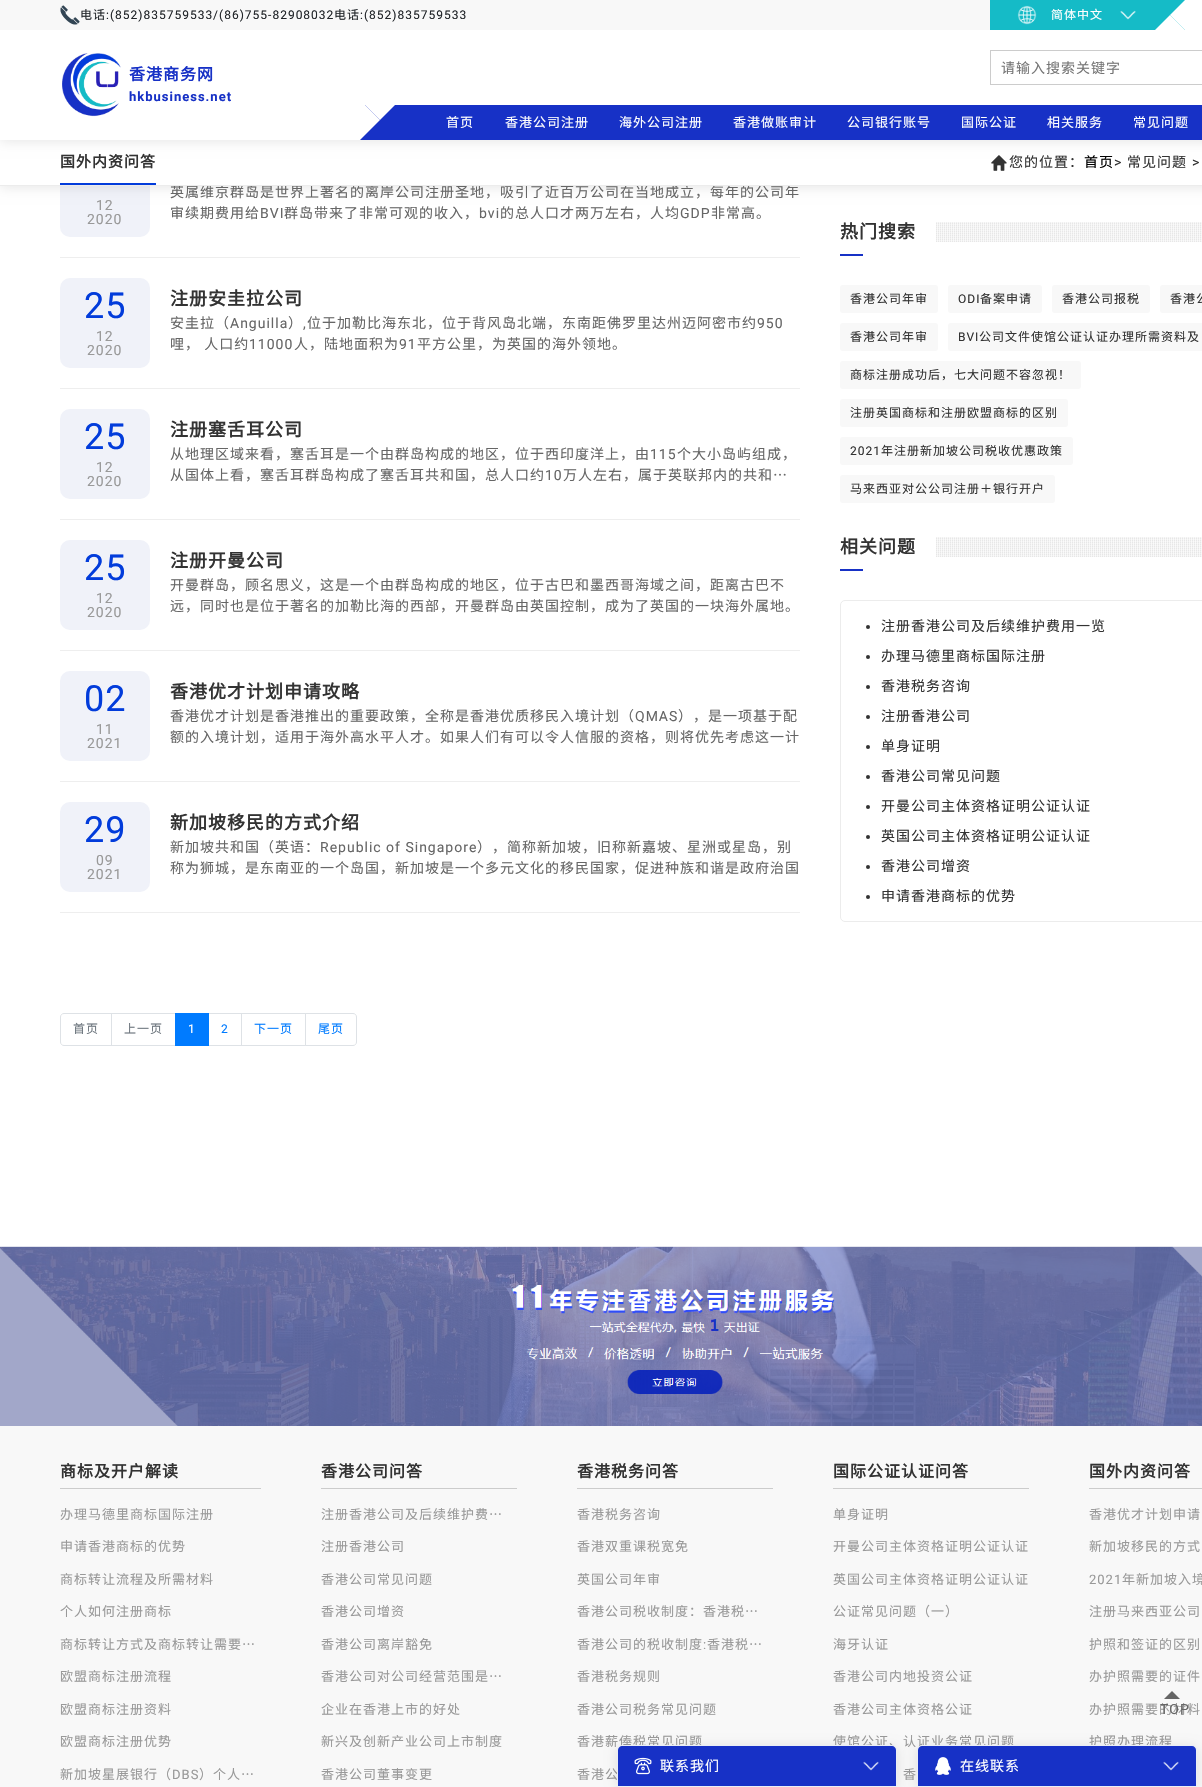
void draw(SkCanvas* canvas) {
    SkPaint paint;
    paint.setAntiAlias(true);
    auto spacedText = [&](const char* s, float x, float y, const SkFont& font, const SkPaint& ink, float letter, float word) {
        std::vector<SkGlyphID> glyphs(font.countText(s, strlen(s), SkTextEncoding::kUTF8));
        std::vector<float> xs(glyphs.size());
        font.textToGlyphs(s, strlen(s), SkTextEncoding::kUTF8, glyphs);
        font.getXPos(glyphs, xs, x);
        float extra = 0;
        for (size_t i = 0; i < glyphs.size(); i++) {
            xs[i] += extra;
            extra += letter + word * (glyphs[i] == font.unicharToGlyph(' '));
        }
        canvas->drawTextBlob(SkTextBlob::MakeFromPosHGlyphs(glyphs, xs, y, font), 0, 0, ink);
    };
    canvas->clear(0xFFFFFFFF);
    paint.setColor(0xFFF0F2F9);
    canvas->drawRoundRect(SkRect::MakeXYWH(60, 147, 90, 90), 10, 10, paint);
    paint.setColor(0x1A000000);
    paint.setMaskFilter(SkMaskFilter::MakeBlur(kNormal_SkBlurStyle, 6));
    canvas->drawRect(SkRect::MakeXYWH(0, 141, 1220, 46), paint);
    paint.setMaskFilter(nullptr);
    paint.setColor(0xFFFFFFFF);
    canvas->drawRect(SkRect::MakeXYWH(0, 140, 1202, 45), paint);
    canvas->drawImageRect(SkImages::DeferredFromEncodedData(SkData::MakeFromFileName("img5.png")), SkRect::MakeXYWH(991, 155, 16, 16), SkSamplingOptions());
    paint.setColor(0x1A000000);
    paint.setMaskFilter(SkMaskFilter::MakeBlur(kNormal_SkBlurStyle, 6));
    canvas->drawRect(SkRect::MakeXYWH(0, 1, 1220, 140), paint);
    paint.setMaskFilter(nullptr);
    paint.setColor(0xFFFFFFFF);
    canvas->drawRect(SkRect::MakeXYWH(0, 0, 1202, 140), paint);
    paint.setColor(0xFFF8F8F8);
    canvas->drawRect(SkRect::MakeXYWH(0, 0, 990, 30), paint);
    canvas->drawImageRect(SkImages::DeferredFromEncodedData(SkData::MakeFromFileName("img1.png")), SkRect::MakeXYWH(60, 5, 20, 20), SkSamplingOptions());
    SkFont font1(fontMgr->matchFamilyStyle("Noto Sans CJK SC", SkFontStyle::Normal()), 12);
    font1.setSubpixel(true);
    paint.setColor(0xFF212529);
    spacedText("电话", 80, 19, font1, paint, 1, 0);
    SkFont font2(fontMgr->matchFamilyStyle("Roboto", SkFontStyle::Normal()), 12);
    font2.setSubpixel(true);
    spacedText(":(852)835759533/(86)755-82908032", 106, 19, font2, paint, 1, 0);
    spacedText("电话", 334, 19, font1, paint, 1, 0);
    spacedText(":(852)835759533", 360, 19, font2, paint, 1, 0);
    paint.setColor(0xFF15BBC7);
    canvas->drawRect(SkRect::MakeXYWH(990, 0, 195, 30), paint);
    canvas->drawImageRect(SkImages::DeferredFromEncodedData(SkData::MakeFromFileName("img2.png")), SkRect::MakeXYWH(1017, 5, 20, 20), SkSamplingOptions());
    paint.setColor(0xFFFFFFFF);
    spacedText("简体中文", 1051, 19, font1, paint, 1, 0);
    canvas->drawImageRect(SkImages::DeferredFromEncodedData(SkData::MakeFromFileName("img3.png")), SkRect::MakeXYWH(1120, 10, 16, 10), SkSamplingOptions());
    canvas->drawPath(SkPathBuilder().moveTo(1190, -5).lineTo(1190, 35).lineTo(1170, 15).close().detach(), paint);
    canvas->drawPath(SkPathBuilder().moveTo(1190, 35).lineTo(1150, 35).lineTo(1170, 15).close().detach(), paint);
    canvas->drawImageRect(SkImages::DeferredFromEncodedData(SkData::MakeFromFileName("img4.png")), SkRect::MakeXYWH(62, 53, 59, 64), SkSamplingOptions());
    SkFont font3(fontMgr->matchFamilyStyle("Noto Sans CJK SC", SkFontStyle::Bold()), 16);
    font3.setSubpixel(true);
    paint.setColor(0xFF1731C6);
    spacedText("香港商务网", 129, 80, font3, paint, 1, 0);
    SkFont font4(fontMgr->matchFamilyStyle("Roboto", SkFontStyle::Bold()), 13);
    font4.setSubpixel(true);
    spacedText("hkbusiness.net", 129, 101, font4, paint, 1, 0);
    paint.setStyle(SkPaint::kStroke_Style);
    paint.setStrokeWidth(1);
    paint.setColor(0xFFCCCCCC);
    canvas->drawRect(SkRect::MakeXYWH(990.5f, 50.5f, 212, 34), paint);
    SkFont font5(fontMgr->matchFamilyStyle("Noto Sans CJK SC", SkFontStyle::Normal()), 14);
    font5.setSubpixel(true);
    paint.setStyle(SkPaint::kFill_Style);
    paint.setColor(0xFF757575);
    spacedText("请输入搜索关键字", 1001, 73, font5, paint, 1, 0);
    paint.setColor(0xFF1731C6);
    canvas->drawRect(SkRect::MakeXYWH(360, 105, 842, 35), paint);
    paint.setColor(0xFFFFFFFF);
    canvas->drawPath(SkPathBuilder().moveTo(360, 100).lineTo(400, 100).lineTo(380, 120).close().detach(), paint);
    canvas->drawPath(SkPathBuilder().moveTo(360, 140).lineTo(360, 100).lineTo(380, 120).close().detach(), paint);
    SkFont font6(fontMgr->matchFamilyStyle("Noto Sans CJK SC", SkFontStyle::Normal()), 13);
    font6.setSubpixel(true);
    spacedText("首页", 446, 127, font6, paint, 1, 0);
    spacedText("香港公司注册", 505, 127, font6, paint, 1, 0);
    spacedText("海外公司注册", 619, 127, font6, paint, 1, 0);
    spacedText("香港做账审计", 733, 127, font6, paint, 1, 0);
    spacedText("公司银行账号", 847, 127, font6, paint, 1, 0);
    spacedText("国际公证", 961, 127, font6, paint, 1, 0);
    spacedText("相关服务", 1047, 127, font6, paint, 1, 0);
    spacedText("常见问题", 1133, 127, font6, paint, 1, 0);
    paint.setColor(0xFF666666);
    spacedText("英属维京群岛是世界上著名的离岸公司注册圣地，吸引了近百万公司在当地成立，每年的公司年", 170, 197, font5, paint, 1, 0);
    paint.setColor(0xFFECECEC);
    canvas->drawRect(SkRect::MakeXYWH(0, 185, 1202, 1), paint);
    paint.setColor(0xFF023CDB);
    canvas->drawRect(SkRect::MakeXYWH(60, 183, 96, 2), paint);
    SkFont font7(fontMgr->matchFamilyStyle("Noto Sans CJK SC", SkFontStyle::Bold()), 15);
    font7.setSubpixel(true);
    paint.setColor(0xFF333333);
    spacedText("国外内资问答", 60, 167, font7, paint, 1, 0);
    spacedText("您的位置：", 1009, 167, font5, paint, 1, 0);
    paint.setColor(0xFF000000);
    spacedText("首页", 1084, 167, font5, paint, 1, 0);
    SkFont font8(fontMgr->matchFamilyStyle("Roboto", SkFontStyle::Normal()), 14);
    font8.setSubpixel(true);
    paint.setColor(0xFF333333);
    spacedText(">", 1114, 167, font8, paint, 1, 0);
    spacedText("常见问题", 1127, 167, font5, paint, 1, 0);
    spacedText(">", 1192, 167, font8, paint, 1, 0);
    paint.setColor(0xFFEEEEEE);
    canvas->drawRect(SkRect::MakeXYWH(60, 257, 740, 1), paint);
    paint.setColor(0xFF999999);
    spacedText("12", 96, 210, font8, paint, 1, 0);
    spacedText("2020", 87, 224, font8, paint, 1, 0);
    paint.setColor(0xFF666666);
    spacedText("审续期费用给", 170, 218, font5, paint, 1, 0);
    spacedText("BVI", 260, 218, font8, paint, 1, 0);
    spacedText("群岛带来了非常可观的收入，", 284, 218, font5, paint, 1, 0);
    spacedText("bvi", 479, 218, font8, paint, 1, 0);
    spacedText("的总人口才两万左右，人均", 500, 218, font5, paint, 1, 0);
    spacedText("GDP", 680, 218, font8, paint, 1, 0);
    spacedText("非常高。", 711, 218, font5, paint, 1, 0);
    paint.setColor(0xFFEEEEEE);
    canvas->drawRect(SkRect::MakeXYWH(60, 388, 740, 1), paint);
    paint.setColor(0xFFF0F2F9);
    canvas->drawRoundRect(SkRect::MakeXYWH(60, 278, 90, 90), 10, 10, paint);
    SkFont font9(fontMgr->matchFamilyStyle("Roboto", SkFontStyle::Normal()), 36);
    font9.setSubpixel(true);
    paint.setColor(0xFF023CDB);
    spacedText("25", 84, 318, font9, paint, 1, 0);
    paint.setColor(0xFF999999);
    spacedText("12", 96, 341, font8, paint, 1, 0);
    spacedText("2020", 87, 355, font8, paint, 1, 0);
    SkFont font10(fontMgr->matchFamilyStyle("Noto Sans CJK SC", SkFontStyle::Bold()), 18);
    font10.setSubpixel(true);
    paint.setColor(0xFF333333);
    spacedText("注册安圭拉公司", 170, 305, font10, paint, 1, 0);
    paint.setColor(0xFF666666);
    spacedText("安圭拉（", 170, 328, font5, paint, 1, 0);
    spacedText("Anguilla", 230, 328, font8, paint, 1, 0);
    spacedText("）", 288, 328, font5, paint, 1, 0);
    spacedText(",", 303, 328, font8, paint, 1, 0);
    spacedText("位于加勒比海东北，位于背风岛北端，东南距佛罗里达州迈阿密市约", 307, 328, font5, paint, 1, 0);
    spacedText("950", 757, 328, font8, paint, 1, 0);
    spacedText("哩， 人口约", 170, 349, font5, paint, 1, 0);
    spacedText("11000", 249, 349, font8, paint, 1, 0);
    spacedText("人，陆地面积为", 294, 349, font5, paint, 1, 0);
    spacedText("91", 399, 349, font8, paint, 1, 0);
    spacedText("平方公里，为英国的海外领地。", 417, 349, font5, paint, 1, 0);
    paint.setColor(0xFFEEEEEE);
    canvas->drawRect(SkRect::MakeXYWH(60, 519, 740, 1), paint);
    paint.setColor(0xFFF0F2F9);
    canvas->drawRoundRect(SkRect::MakeXYWH(60, 409, 90, 90), 10, 10, paint);
    paint.setColor(0xFF023CDB);
    spacedText("25", 84, 449, font9, paint, 1, 0);
    paint.setColor(0xFF999999);
    spacedText("12", 96, 472, font8, paint, 1, 0);
    spacedText("2020", 87, 486, font8, paint, 1, 0);
    paint.setColor(0xFF333333);
    spacedText("注册塞舌耳公司", 170, 436, font10, paint, 1, 0);
    paint.setColor(0xFF666666);
    spacedText("从地理区域来看，塞舌耳是一个由群岛构成的地区，位于西印度洋上，由", 170, 459, font5, paint, 1, 0);
    spacedText("115", 650, 459, font8, paint, 1, 0);
    spacedText("个大小岛屿组成，", 677, 459, font5, paint, 1, 0);
    spacedText("从国体上看，塞舌耳群岛构成了塞舌耳共和国，总人口约", 170, 480, font5, paint, 1, 0);
    spacedText("10", 545, 480, font8, paint, 1, 0);
    spacedText("万人左右，属于英联邦内的共和…", 563, 480, font5, paint, 1, 0);
    paint.setColor(0xFFEEEEEE);
    canvas->drawRect(SkRect::MakeXYWH(60, 650, 740, 1), paint);
    paint.setColor(0xFFF0F2F9);
    canvas->drawRoundRect(SkRect::MakeXYWH(60, 540, 90, 90), 10, 10, paint);
    paint.setColor(0xFF023CDB);
    spacedText("25", 84, 580, font9, paint, 1, 0);
    paint.setColor(0xFF999999);
    spacedText("12", 96, 603, font8, paint, 1, 0);
    spacedText("2020", 87, 617, font8, paint, 1, 0);
    paint.setColor(0xFF333333);
    spacedText("注册开曼公司", 170, 567, font10, paint, 1, 0);
    paint.setColor(0xFF666666);
    spacedText("开曼群岛，顾名思义，这是一个由群岛构成的地区，位于古巴和墨西哥海域之间，距离古巴不", 170, 590, font5, paint, 1, 0);
    spacedText("远，同时也是位于著名的加勒比海的西部，开曼群岛由英国控制，成为了英国的一块海外属地。", 170, 611, font5, paint, 1, 0);
    paint.setColor(0xFFEEEEEE);
    canvas->drawRect(SkRect::MakeXYWH(60, 781, 740, 1), paint);
    paint.setColor(0xFFF0F2F9);
    canvas->drawRoundRect(SkRect::MakeXYWH(60, 671, 90, 90), 10, 10, paint);
    paint.setColor(0xFF023CDB);
    spacedText("02", 84, 711, font9, paint, 1, 0);
    paint.setColor(0xFF999999);
    spacedText("11", 96, 734, font8, paint, 1, 0);
    spacedText("2021", 87, 748, font8, paint, 1, 0);
    paint.setColor(0xFF333333);
    spacedText("香港优才计划申请攻略", 170, 698, font10, paint, 1, 0);
    paint.setColor(0xFF666666);
    spacedText("香港优才计划是香港推出的重要政策，全称是香港优质移民入境计划（", 170, 721, font5, paint, 1, 0);
    spacedText("QMAS", 635, 721, font8, paint, 1, 0);
    spacedText("），是一项基于配", 678, 721, font5, paint, 1, 0);
    spacedText("额的入境计划，适用于海外高水平人才。如果人们有可以令人信服的资格，则将优先考虑这一计", 170, 742, font5, paint, 1, 0);
    paint.setColor(0xFFEEEEEE);
    canvas->drawRect(SkRect::MakeXYWH(60, 912, 740, 1), paint);
    paint.setColor(0xFFF0F2F9);
    canvas->drawRoundRect(SkRect::MakeXYWH(60, 802, 90, 90), 10, 10, paint);
    paint.setColor(0xFF023CDB);
    spacedText("29", 84, 842, font9, paint, 1, 0);
    paint.setColor(0xFF999999);
    spacedText("09", 96, 865, font8, paint, 1, 0);
    spacedText("2021", 87, 879, font8, paint, 1, 0);
    paint.setColor(0xFF333333);
    spacedText("新加坡移民的方式介绍", 170, 829, font10, paint, 1, 0);
    paint.setColor(0xFF666666);
    spacedText("新加坡共和国（英语：", 170, 852, font5, paint, 1, 0);
    spacedText("Republic of Singapore", 320, 852, font8, paint, 1, 0);
    spacedText("），简称新加坡，旧称新嘉坡、星洲或星岛，别", 477, 852, font5, paint, 1, 0);
    spacedText("称为狮城，是东南亚的一个岛国，新加坡是一个多元文化的移民国家，促进种族和谐是政府治国", 170, 873, font5, paint, 1, 0);
    paint.setStyle(SkPaint::kStroke_Style);
    paint.setColor(0xFFDEE2E6);
    canvas->drawPath(SkPathBuilder().moveTo(64, 1013.5f).lineTo(111.5f, 1013.5f).lineTo(111.5f, 1045.5f).lineTo(64, 1045.5f).cubicTo(62, 1045.5f, 60.5f, 1044, 60.5f, 1042).lineTo(60.5f, 1017).cubicTo(60.5f, 1015, 62, 1013.5f, 64, 1013.5f).close().detach(), paint);
    paint.setStyle(SkPaint::kFill_Style);
    paint.setColor(0xFF6C757D);
    spacedText("首页", 73, 1033, font1, paint, 1, 0);
    paint.setStyle(SkPaint::kStroke_Style);
    paint.setColor(0xFFDEE2E6);
    canvas->drawRect(SkRect::MakeXYWH(111.5f, 1013.5f, 64, 32), paint);
    paint.setStyle(SkPaint::kFill_Style);
    paint.setColor(0xFF6C757D);
    spacedText("上一页", 124, 1033, font1, paint, 1, 0);
    paint.setStyle(SkPaint::kStroke_Style);
    paint.setColor(0xFFDEE2E6);
    canvas->drawRect(SkRect::MakeXYWH(208.5f, 1013.5f, 33, 32), paint);
    paint.setStyle(SkPaint::kFill_Style);
    paint.setColor(0xFF007BFF);
    canvas->drawRect(SkRect::MakeXYWH(175, 1013, 34, 33), paint);
    paint.setColor(0xFFFFFFFF);
    spacedText("1", 188, 1033, font2, paint, 1, 0);
    paint.setColor(0xFF007BFF);
    spacedText("2", 221, 1033, font2, paint, 1, 0);
    paint.setStyle(SkPaint::kStroke_Style);
    paint.setColor(0xFFDEE2E6);
    canvas->drawRect(SkRect::MakeXYWH(241.5f, 1013.5f, 64, 32), paint);
    paint.setStyle(SkPaint::kFill_Style);
    paint.setColor(0xFF007BFF);
    spacedText("下一页", 254, 1033, font1, paint, 1, 0);
    paint.setColor(0xFFFFFFFF);
    canvas->drawPath(SkPathBuilder().moveTo(305.5f, 1013.5f).lineTo(353, 1013.5f).cubicTo(355, 1013.5f, 356.5f, 1015, 356.5f, 1017).lineTo(356.5f, 1042).cubicTo(356.5f, 1044, 355, 1045.5f, 353, 1045.5f).lineTo(305.5f, 1045.5f).close().detach(), paint);
    paint.setStyle(SkPaint::kStroke_Style);
    paint.setColor(0xFFDEE2E6);
    canvas->drawPath(SkPathBuilder().moveTo(305.5f, 1013.5f).lineTo(353, 1013.5f).cubicTo(355, 1013.5f, 356.5f, 1015, 356.5f, 1017).lineTo(356.5f, 1042).cubicTo(356.5f, 1044, 355, 1045.5f, 353, 1045.5f).lineTo(305.5f, 1045.5f).close().detach(), paint);
    paint.setStyle(SkPaint::kFill_Style);
    paint.setColor(0xFF007BFF);
    spacedText("尾页", 318, 1033, font1, paint, 1, 0);
    paint.setColor(0xFF333333);
    spacedText("热门搜索", 840, 238, font10, paint, 1, 0);
    paint.setColor(0xFF1731C6);
    canvas->drawRect(SkRect::MakeXYWH(840, 254, 23, 2), paint);
    canvas->drawImageRect(SkImages::DeferredFromEncodedData(SkData::MakeFromFileName("img6.png")), SkRect::MakeXYWH(936, 222, 266, 20), SkSamplingOptions());
    paint.setColor(0xFFF8F8F8);
    canvas->drawRoundRect(SkRect::MakeXYWH(840, 285, 98, 28), 3, 3, paint);
    paint.setColor(0xFF333333);
    spacedText("香港公司年审", 850, 303, font1, paint, 1, 0);
    paint.setColor(0xFFF8F8F8);
    canvas->drawRoundRect(SkRect::MakeXYWH(948, 285, 94, 28), 3, 3, paint);
    paint.setColor(0xFF333333);
    spacedText("ODI", 958, 303, font2, paint, 1, 0);
    spacedText("备案申请", 980, 303, font1, paint, 1, 0);
    paint.setColor(0xFFF8F8F8);
    canvas->drawRoundRect(SkRect::MakeXYWH(1052, 285, 98, 28), 3, 3, paint);
    paint.setColor(0xFF333333);
    spacedText("香港公司报税", 1062, 303, font1, paint, 1, 0);
    paint.setColor(0xFFF8F8F8);
    canvas->drawRoundRect(SkRect::MakeXYWH(1160, 285, 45, 28), 3, 3, paint);
    paint.setColor(0xFF333333);
    spacedText("香港公", 1170, 303, font1, paint, 1, 0);
    paint.setColor(0xFFF8F8F8);
    canvas->drawRoundRect(SkRect::MakeXYWH(840, 323, 98, 28), 3, 3, paint);
    paint.setColor(0xFF333333);
    spacedText("香港公司年审", 850, 341, font1, paint, 1, 0);
    paint.setColor(0xFFF8F8F8);
    canvas->drawRoundRect(SkRect::MakeXYWH(948, 323, 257, 28), 3, 3, paint);
    paint.setColor(0xFF333333);
    spacedText("BVI", 958, 341, font2, paint, 1, 0);
    spacedText("公司文件使馆公证认证办理所需资料及", 979, 341, font1, paint, 1, 0);
    paint.setColor(0xFFF8F8F8);
    canvas->drawRoundRect(SkRect::MakeXYWH(840, 361, 241, 28), 3, 3, paint);
    paint.setColor(0xFF333333);
    spacedText("商标注册成功后，七大问题不容忽视！", 850, 379, font1, paint, 1, 0);
    paint.setColor(0xFFF8F8F8);
    canvas->drawRoundRect(SkRect::MakeXYWH(840, 399, 228, 28), 3, 3, paint);
    paint.setColor(0xFF333333);
    spacedText("注册英国商标和注册欧盟商标的区别", 850, 417, font1, paint, 1, 0);
    paint.setColor(0xFFF8F8F8);
    canvas->drawRoundRect(SkRect::MakeXYWH(840, 437, 233, 28), 3, 3, paint);
    paint.setColor(0xFF333333);
    spacedText("2021", 850, 455, font2, paint, 1, 0);
    spacedText("年注册新加坡公司税收优惠政策", 881, 455, font1, paint, 1, 0);
    paint.setColor(0xFFF8F8F8);
    canvas->drawRoundRect(SkRect::MakeXYWH(840, 475, 215, 28), 3, 3, paint);
    paint.setColor(0xFF333333);
    spacedText("马来西亚对公公司注册＋银行开户", 850, 493, font1, paint, 1, 0);
    spacedText("相关问题", 840, 553, font10, paint, 1, 0);
    paint.setColor(0xFF1731C6);
    canvas->drawRect(SkRect::MakeXYWH(840, 569, 23, 2), paint);
    canvas->drawImageRect(SkImages::DeferredFromEncodedData(SkData::MakeFromFileName("img6.png")), SkRect::MakeXYWH(936, 537, 266, 20), SkSamplingOptions());
    paint.setStyle(SkPaint::kStroke_Style);
    paint.setColor(0xFFECECEC);
    canvas->drawRoundRect(SkRect::MakeXYWH(840.5f, 600.5f, 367, 321), 4.5f, 4.5f, paint);
    paint.setStyle(SkPaint::kFill_Style);
    paint.setColor(0xFF333333);
    canvas->drawCircle(868, 627, 2, paint);
    spacedText("注册香港公司及后续维护费用一览", 881, 631, font5, paint, 1, 0);
    canvas->drawCircle(868, 657, 2, paint);
    spacedText("办理马德里商标国际注册", 881, 661, font5, paint, 1, 0);
    canvas->drawCircle(868, 687, 2, paint);
    spacedText("香港税务咨询", 881, 691, font5, paint, 1, 0);
    canvas->drawCircle(868, 717, 2, paint);
    spacedText("注册香港公司", 881, 721, font5, paint, 1, 0);
    canvas->drawCircle(868, 747, 2, paint);
    spacedText("单身证明", 881, 751, font5, paint, 1, 0);
    canvas->drawCircle(868, 777, 2, paint);
    spacedText("香港公司常见问题", 881, 781, font5, paint, 1, 0);
    canvas->drawCircle(868, 807, 2, paint);
    spacedText("开曼公司主体资格证明公证认证", 881, 811, font5, paint, 1, 0);
    canvas->drawCircle(868, 837, 2, paint);
    spacedText("英国公司主体资格证明公证认证", 881, 841, font5, paint, 1, 0);
    canvas->drawCircle(868, 867, 2, paint);
    spacedText("香港公司增资", 881, 871, font5, paint, 1, 0);
    canvas->drawCircle(868, 897, 2, paint);
    spacedText("申请香港商标的优势", 881, 901, font5, paint, 1, 0);
    canvas->drawImageRect(SkImages::DeferredFromEncodedData(SkData::MakeFromFileName("img7.png")), SkRect::MakeXYWH(0, 1246, 1202, 180), SkSamplingOptions());
    paint.setColor(0xFFF8F8F8);
    canvas->drawRect(SkRect::MakeXYWH(0, 1426, 1202, 361), paint);
    paint.setColor(0xFFCCCCCC);
    canvas->drawRect(SkRect::MakeXYWH(60, 1488, 201, 1), paint);
    paint.setColor(0xFF333333);
    spacedText("商标及开户解读", 60, 1477, font3, paint, 1, 0);
    paint.setColor(0xFF999999);
    spacedText("办理马德里商标国际注册", 60, 1519, font6, paint, 1, 0);
    spacedText("申请香港商标的优势", 60, 1551, font6, paint, 1, 0);
    spacedText("商标转让流程及所需材料", 60, 1584, font6, paint, 1, 0);
    spacedText("个人如何注册商标", 60, 1616, font6, paint, 1, 0);
    spacedText("商标转让方式及商标转让需要…", 60, 1649, font6, paint, 1, 0);
    spacedText("欧盟商标注册流程", 60, 1681, font6, paint, 1, 0);
    spacedText("欧盟商标注册资料", 60, 1714, font6, paint, 1, 0);
    spacedText("欧盟商标注册优势", 60, 1746, font6, paint, 1, 0);
    spacedText("新加坡星展银行（", 60, 1779, font6, paint, 1, 0);
    SkFont font11(fontMgr->matchFamilyStyle("Roboto", SkFontStyle::Normal()), 13);
    font11.setSubpixel(true);
    spacedText("DBS", 172, 1779, font11, paint, 1, 0);
    spacedText("）个人…", 199, 1779, font6, paint, 1, 0);
    paint.setColor(0xFFCCCCCC);
    canvas->drawRect(SkRect::MakeXYWH(321, 1488, 196, 1), paint);
    paint.setColor(0xFF333333);
    spacedText("香港公司问答", 321, 1477, font3, paint, 1, 0);
    paint.setColor(0xFF999999);
    spacedText("注册香港公司及后续维护费…", 321, 1519, font6, paint, 1, 0);
    spacedText("注册香港公司", 321, 1551, font6, paint, 1, 0);
    spacedText("香港公司常见问题", 321, 1584, font6, paint, 1, 0);
    spacedText("香港公司增资", 321, 1616, font6, paint, 1, 0);
    spacedText("香港公司离岸豁免", 321, 1649, font6, paint, 1, 0);
    spacedText("香港公司对公司经营范围是…", 321, 1681, font6, paint, 1, 0);
    spacedText("企业在香港上市的好处", 321, 1714, font6, paint, 1, 0);
    spacedText("新兴及创新产业公司上市制度", 321, 1746, font6, paint, 1, 0);
    spacedText("香港公司董事变更", 321, 1779, font6, paint, 1, 0);
    paint.setColor(0xFFCCCCCC);
    canvas->drawRect(SkRect::MakeXYWH(577, 1488, 196, 1), paint);
    paint.setColor(0xFF333333);
    spacedText("香港税务问答", 577, 1477, font3, paint, 1, 0);
    paint.setColor(0xFF999999);
    spacedText("香港税务咨询", 577, 1519, font6, paint, 1, 0);
    spacedText("香港双重课税宽免", 577, 1551, font6, paint, 1, 0);
    spacedText("英国公司年审", 577, 1584, font6, paint, 1, 0);
    spacedText("香港公司税收制度：香港税…", 577, 1616, font6, paint, 1, 0);
    spacedText("香港公司的税收制度 香港税…", 577, 1649, font6, paint, 1, 0);
    spacedText(":", 703, 1649, font11, paint, 1, 0);
    spacedText("香港税务规则", 577, 1681, font6, paint, 1, 0);
    spacedText("香港公司税务常见问题", 577, 1714, font6, paint, 1, 0);
    spacedText("香港薪俸税常见问题", 577, 1746, font6, paint, 1, 0);
    spacedText("香港公", 577, 1779, font6, paint, 1, 0);
    paint.setColor(0xFFCCCCCC);
    canvas->drawRect(SkRect::MakeXYWH(833, 1488, 196, 1), paint);
    paint.setColor(0xFF333333);
    spacedText("国际公证认证问答", 833, 1477, font3, paint, 1, 0);
    paint.setColor(0xFF999999);
    spacedText("单身证明", 833, 1519, font6, paint, 1, 0);
    spacedText("开曼公司主体资格证明公证认证", 833, 1551, font6, paint, 1, 0);
    spacedText("英国公司主体资格证明公证认证", 833, 1584, font6, paint, 1, 0);
    spacedText("公证常见问题（一）", 833, 1616, font6, paint, 1, 0);
    spacedText("海牙认证", 833, 1649, font6, paint, 1, 0);
    spacedText("香港公司内地投资公证", 833, 1681, font6, paint, 1, 0);
    spacedText("香港公司主体资格公证", 833, 1714, font6, paint, 1, 0);
    spacedText("使馆公证、认证业务常见问题", 833, 1746, font6, paint, 1, 0);
    spacedText("香", 903, 1779, font6, paint, 1, 0);
    paint.setColor(0xFFCCCCCC);
    canvas->drawRect(SkRect::MakeXYWH(1089, 1488, 113, 1), paint);
    paint.setColor(0xFF333333);
    spacedText("国外内资问答", 1089, 1477, font3, paint, 1, 0);
    paint.setColor(0xFF999999);
    spacedText("香港优才计划申请", 1089, 1519, font6, paint, 1, 0);
    spacedText("新加坡移民的方式", 1089, 1551, font6, paint, 1, 0);
    spacedText("2021", 1089, 1584, font11, paint, 1, 0);
    spacedText("年新加坡入境", 1122, 1584, font6, paint, 1, 0);
    spacedText("注册马来西亚公司", 1089, 1616, font6, paint, 1, 0);
    spacedText("护照和签证的区别", 1089, 1649, font6, paint, 1, 0);
    spacedText("办护照需要的证件", 1089, 1681, font6, paint, 1, 0);
    spacedText("办护照需要的材料", 1089, 1714, font6, paint, 1, 0);
    spacedText("护照办理流程", 1089, 1746, font6, paint, 1, 0);
    paint.setColor(0xFF666666);
    canvas->drawPath(SkPathBuilder().moveTo(1180, 1699).lineTo(1164, 1699).lineTo(1172, 1691).close().detach(), paint);
    spacedText("TOP", 1160, 1714, font8, paint, 1, 0);
    paint.setColor(0x1A000000);
    paint.setMaskFilter(SkMaskFilter::MakeBlur(kNormal_SkBlurStyle, 6));
    canvas->drawRoundRect(SkRect::MakeXYWH(617, 1747, 280, 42), 5, 5, paint);
    paint.setMaskFilter(nullptr);
    paint.setStyle(SkPaint::kStroke_Style);
    paint.setColor(0xFFEBEEF5);
    canvas->drawPath(SkPathBuilder().moveTo(622, 1745.5f).lineTo(892, 1745.5f).cubicTo(894.5f, 1745.5f, 896.5f, 1747.5f, 896.5f, 1750).lineTo(896.5f, 1786.5f).lineTo(617.5f, 1786.5f).lineTo(617.5f, 1750).cubicTo(617.5f, 1747.5f, 619.5f, 1745.5f, 622, 1745.5f).close().detach(), paint);
    paint.setStyle(SkPaint::kFill_Style);
    paint.setColor(0xFF1731C6);
    canvas->drawPath(SkPathBuilder().moveTo(622, 1746).lineTo(892, 1746).cubicTo(894, 1746, 896, 1748, 896, 1750).lineTo(896, 1786).lineTo(618, 1786).lineTo(618, 1750).cubicTo(618, 1748, 620, 1746, 622, 1746).close().detach(), paint);
    canvas->drawImageRect(SkImages::DeferredFromEncodedData(SkData::MakeFromFileName("img8.png")), SkRect::MakeXYWH(634, 1757, 18, 18), SkSamplingOptions());
    paint.setColor(0xFFFFFFFF);
    spacedText("联系我们", 660, 1771, font5, paint, 1, 0);
    canvas->drawImageRect(SkImages::DeferredFromEncodedData(SkData::MakeFromFileName("img9.png")), SkRect::MakeXYWH(863, 1761, 16, 10), SkSamplingOptions());
    paint.setColor(0x1A000000);
    paint.setMaskFilter(SkMaskFilter::MakeBlur(kNormal_SkBlurStyle, 6));
    canvas->drawRoundRect(SkRect::MakeXYWH(917, 1747, 280, 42), 5, 5, paint);
    paint.setMaskFilter(nullptr);
    paint.setStyle(SkPaint::kStroke_Style);
    paint.setColor(0xFFEBEEF5);
    canvas->drawPath(SkPathBuilder().moveTo(922, 1745.5f).lineTo(1192, 1745.5f).cubicTo(1194.5f, 1745.5f, 1196.5f, 1747.5f, 1196.5f, 1750).lineTo(1196.5f, 1786.5f).lineTo(917.5f, 1786.5f).lineTo(917.5f, 1750).cubicTo(917.5f, 1747.5f, 919.5f, 1745.5f, 922, 1745.5f).close().detach(), paint);
    paint.setStyle(SkPaint::kFill_Style);
    paint.setColor(0xFF1731C6);
    canvas->drawPath(SkPathBuilder().moveTo(922, 1746).lineTo(1192, 1746).cubicTo(1194, 1746, 1196, 1748, 1196, 1750).lineTo(1196, 1786).lineTo(918, 1786).lineTo(918, 1750).cubicTo(918, 1748, 920, 1746, 922, 1746).close().detach(), paint);
    canvas->drawImageRect(SkImages::DeferredFromEncodedData(SkData::MakeFromFileName("img10.png")), SkRect::MakeXYWH(935, 1757, 16, 18), SkSamplingOptions());
    paint.setColor(0xFFFFFFFF);
    spacedText("在线联系", 960, 1771, font5, paint, 1, 0);
    canvas->drawImageRect(SkImages::DeferredFromEncodedData(SkData::MakeFromFileName("img9.png")), SkRect::MakeXYWH(1163, 1761, 16, 10), SkSamplingOptions());
}
